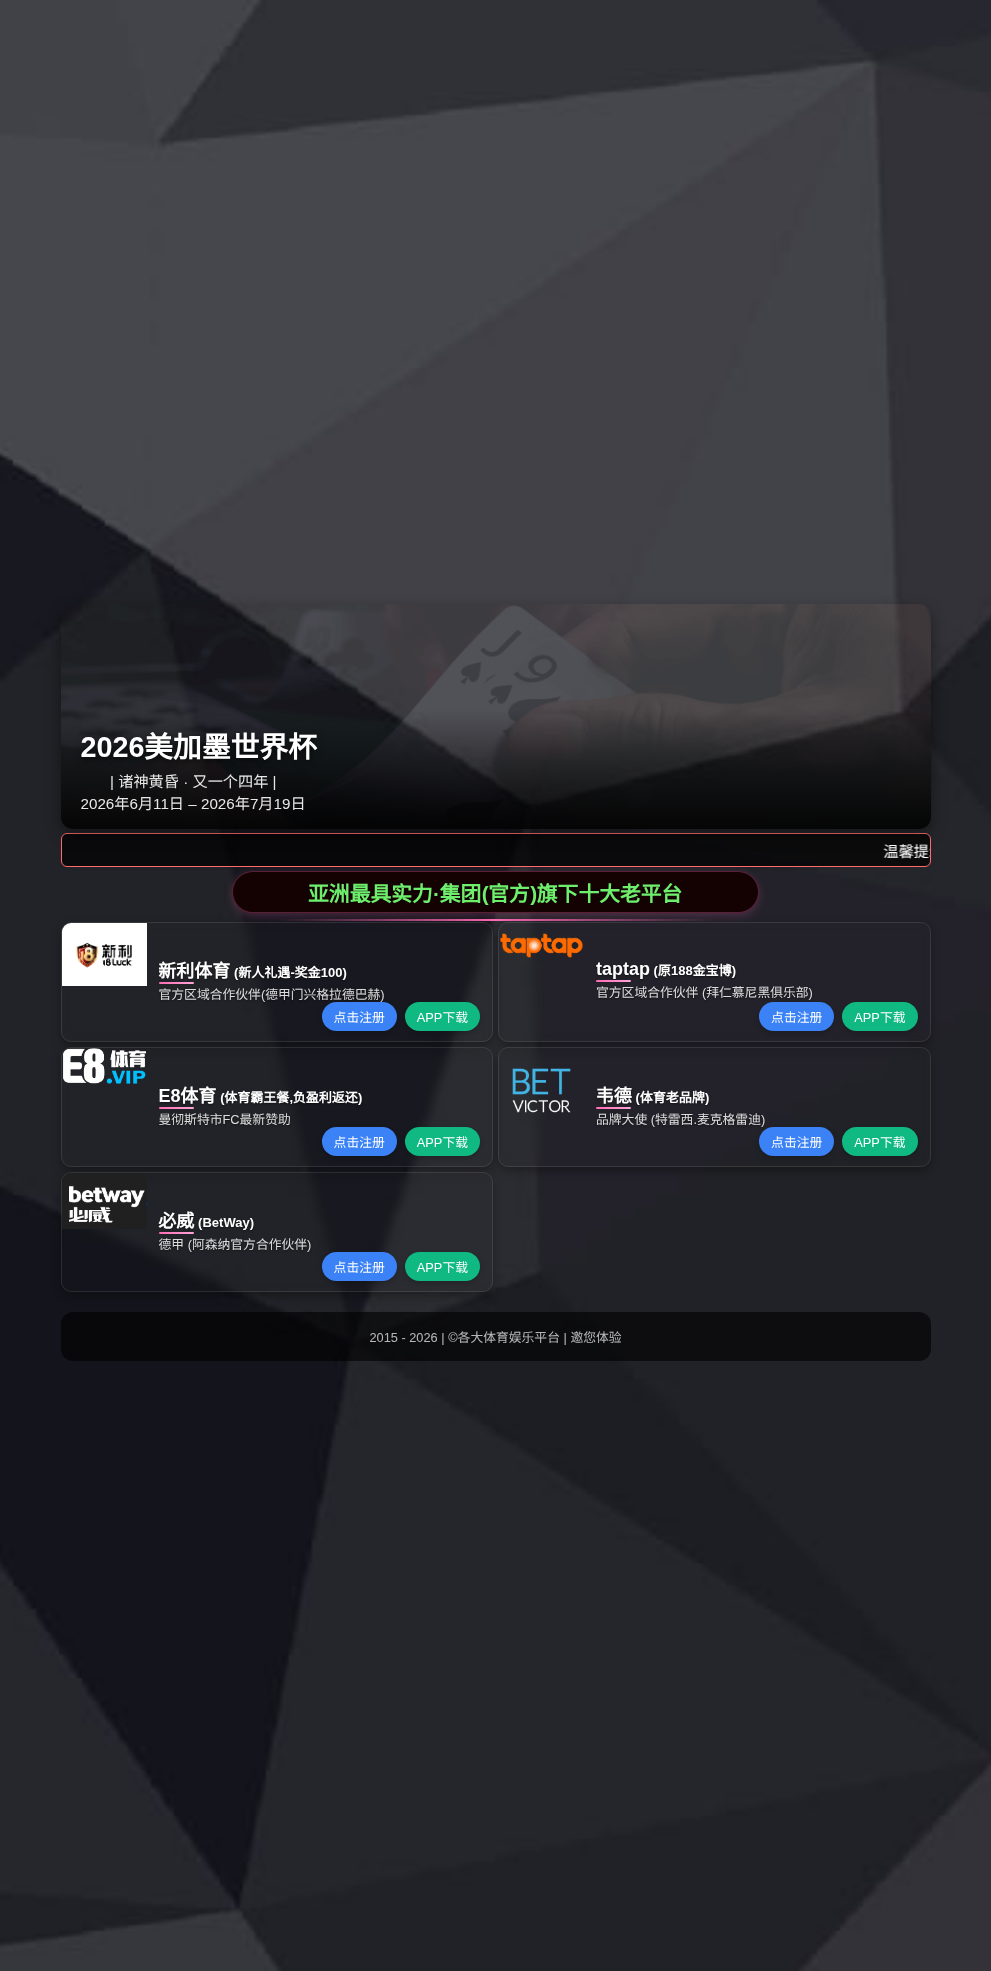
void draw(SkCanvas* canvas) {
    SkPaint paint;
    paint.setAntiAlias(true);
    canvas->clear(0xFFFFFFFF);
    canvas->drawImageRect(SkImages::DeferredFromEncodedData(SkData::MakeFromFileName("img1.png")), SkRect::MakeXYWH(0, 0, 991, 1971), SkSamplingOptions());
}
